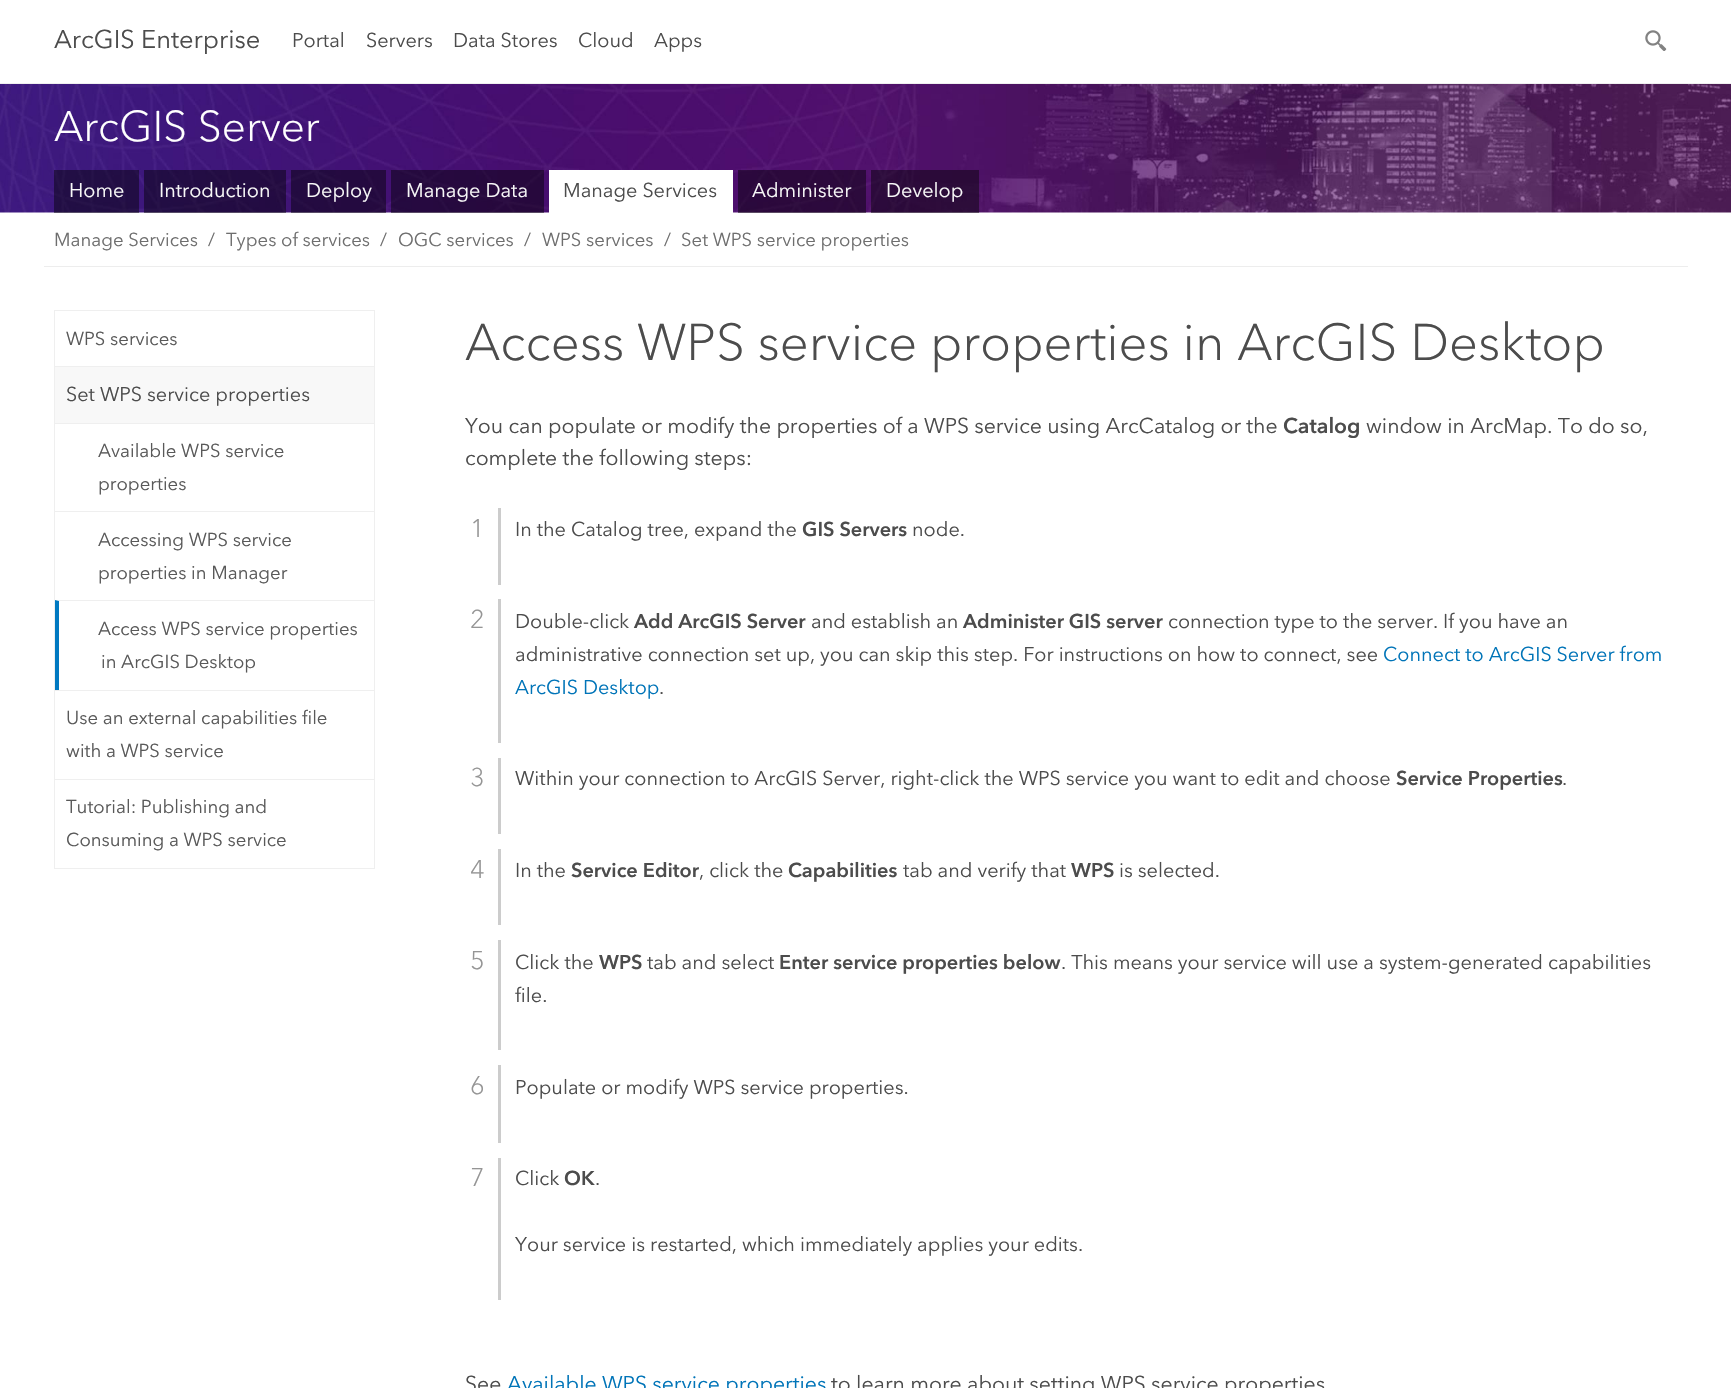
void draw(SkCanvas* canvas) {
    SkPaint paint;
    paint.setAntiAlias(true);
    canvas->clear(0xFFFFFFFF);
    paint.setColor(0xFFEFEFEF);
    canvas->drawRect(SkRect::MakeXYWH(0, 83, 1731, 1), paint);
    SkFont font1(fontMgr->matchFamilyStyle("Avenir Next", SkFontStyle::Normal()), 25.5f);
    font1.setSubpixel(true);
    paint.setColor(0xFF4C4C4C);
    canvas->drawString("ArcGIS Enterprise", 54, 48, font1, paint);
    SkFont font2(fontMgr->matchFamilyStyle("Avenir Next", SkFontStyle::Normal()), 19.9f);
    font2.setSubpixel(true);
    canvas->drawString("Portal", 292, 47, font2, paint);
    canvas->drawString("Servers", 366, 47, font2, paint);
    canvas->drawString("Data Stores", 453, 47, font2, paint);
    canvas->drawString("Cloud", 578, 47, font2, paint);
    canvas->drawString("Apps", 654, 47, font2, paint);
    canvas->drawImageRect(SkImages::DeferredFromEncodedData(SkData::MakeFromFileName("img1.png")), SkRect::MakeXYWH(1645, 30, 22, 21), SkSamplingOptions());
    canvas->drawImageRect(SkImages::DeferredFromEncodedData(SkData::MakeFromFileName("img2.png")), SkRect::MakeXYWH(0, 84, 1731, 129), SkSamplingOptions());
    SkFont font3(fontMgr->matchFamilyStyle("Avenir Next", SkFontStyle(300, SkFontStyle::kNormal_Width, SkFontStyle::kUpright_Slant)), 42.5f);
    font3.setSubpixel(true);
    paint.setColor(0xFFFFFFFF);
    canvas->drawString("ArcGIS Server", 54, 141, font3, paint);
    paint.setColor(0x73000000);
    canvas->drawRect(SkRect::MakeXYWH(54, 170, 85, 43), paint);
    paint.setColor(0xFFF8F8F8);
    canvas->drawString("Home", 69, 197, font2, paint);
    paint.setColor(0x73000000);
    canvas->drawRect(SkRect::MakeXYWH(144, 170, 142, 43), paint);
    paint.setColor(0xFFF8F8F8);
    canvas->drawString("Introduction", 159, 197, font2, paint);
    paint.setColor(0x73000000);
    canvas->drawRect(SkRect::MakeXYWH(291, 170, 95, 43), paint);
    paint.setColor(0xFFF8F8F8);
    canvas->drawString("Deploy", 306, 197, font2, paint);
    paint.setColor(0x73000000);
    canvas->drawRect(SkRect::MakeXYWH(391, 170, 153, 43), paint);
    paint.setColor(0xFFF8F8F8);
    canvas->drawString("Manage Data", 406, 197, font2, paint);
    paint.setColor(0xFFFFFFFF);
    canvas->drawRect(SkRect::MakeXYWH(549, 170, 184, 43), paint);
    paint.setColor(0xFF4C4C4C);
    canvas->drawString("Manage Services", 563, 197, font2, paint);
    paint.setColor(0x73000000);
    canvas->drawRect(SkRect::MakeXYWH(738, 170, 128, 43), paint);
    paint.setColor(0xFFF8F8F8);
    canvas->drawString("Administer", 752, 197, font2, paint);
    paint.setColor(0x73000000);
    canvas->drawRect(SkRect::MakeXYWH(871, 170, 108, 43), paint);
    paint.setColor(0xFFF8F8F8);
    canvas->drawString("Develop", 886, 197, font2, paint);
    paint.setColor(0xFFEDEDED);
    canvas->drawRect(SkRect::MakeXYWH(44, 266, 1644, 1), paint);
    SkFont font4(fontMgr->matchFamilyStyle("Avenir Next", SkFontStyle::Normal()), 18.6f);
    font4.setSubpixel(true);
    paint.setColor(0xFF6E6E6E);
    canvas->drawString("Manage Services", 54, 246, font4, paint);
    canvas->drawString("/", 208, 246, font4, paint);
    canvas->drawString("Types of services", 226, 246, font4, paint);
    canvas->drawString("/", 380, 246, font4, paint);
    canvas->drawString("OGC services", 398, 246, font4, paint);
    canvas->drawString("/", 524, 246, font4, paint);
    canvas->drawString("WPS services", 542, 246, font4, paint);
    canvas->drawString("/", 664, 246, font4, paint);
    canvas->drawString("Set WPS service properties", 681, 246, font4, paint);
    paint.setColor(0xFFEFEFEF);
    canvas->drawRect(SkRect::MakeXYWH(374, 310, 1, 559), paint);
    canvas->drawRect(SkRect::MakeXYWH(54, 868, 321, 1), paint);
    canvas->drawRect(SkRect::MakeXYWH(54, 310, 1, 559), paint);
    canvas->drawRect(SkRect::MakeXYWH(55, 310, 319, 1), paint);
    paint.setColor(0xFF595959);
    canvas->drawString("WPS services", 66, 345, font4, paint);
    paint.setColor(0xFFF8F8F8);
    canvas->drawRect(SkRect::MakeXYWH(55, 367, 319, 56), paint);
    paint.setColor(0xFFEFEFEF);
    canvas->drawRect(SkRect::MakeXYWH(55, 366, 319, 1), paint);
    paint.setColor(0xFF4C4C4C);
    canvas->drawString("Set WPS service properties", 66, 401, font2, paint);
    paint.setColor(0xFFEFEFEF);
    canvas->drawRect(SkRect::MakeXYWH(55, 423, 319, 1), paint);
    paint.setColor(0xFF595959);
    canvas->drawString("Available WPS service", 98, 457, font4, paint);
    canvas->drawString("properties", 98, 490, font4, paint);
    paint.setColor(0xFFEFEFEF);
    canvas->drawRect(SkRect::MakeXYWH(55, 511, 319, 1), paint);
    paint.setColor(0xFF595959);
    canvas->drawString("Accessing WPS service", 98, 546, font4, paint);
    canvas->drawString("properties in Manager", 98, 579, font4, paint);
    paint.setColor(0xFFEFEFEF);
    canvas->drawPath(SkPathBuilder().moveTo(55, 600).lineTo(374, 600).lineTo(374, 601).lineTo(59, 601).close().detach(), paint);
    paint.setColor(0xFF0079C1);
    canvas->drawPath(SkPathBuilder().moveTo(55, 690).lineTo(55, 600).lineTo(59, 601).lineTo(59, 690).close().detach(), paint);
    paint.setColor(0xFF595959);
    canvas->drawString("Access WPS service properties", 98, 635, font4, paint);
    canvas->drawString("in ArcGIS Desktop", 101, 668, font4, paint);
    paint.setColor(0xFFEFEFEF);
    canvas->drawRect(SkRect::MakeXYWH(55, 690, 319, 1), paint);
    paint.setColor(0xFF595959);
    canvas->drawString("Use an external capabilities file", 66, 724, font4, paint);
    canvas->drawString("with a WPS service", 66, 757, font4, paint);
    paint.setColor(0xFFEFEFEF);
    canvas->drawRect(SkRect::MakeXYWH(55, 779, 319, 1), paint);
    paint.setColor(0xFF595959);
    canvas->drawString("Tutorial: Publishing and", 66, 813, font4, paint);
    canvas->drawString("Consuming a WPS service", 66, 846, font4, paint);
    SkFont font5(fontMgr->matchFamilyStyle("Avenir Next", SkFontStyle(300, SkFontStyle::kNormal_Width, SkFontStyle::kUpright_Slant)), 51.1f);
    font5.setSubpixel(true);
    paint.setColor(0xFF4C4C4C);
    canvas->drawString("Access WPS service properties in ArcGIS Desktop", 465, 360, font5, paint);
    SkFont font6(fontMgr->matchFamilyStyle("Avenir Next", SkFontStyle::Normal()), 21.25f);
    font6.setSubpixel(true);
    canvas->drawString("You can populate or modify the properties of a WPS service using ArcCatalog or the", 465, 433, font6, paint);
    SkFont font7(fontMgr->matchFamilyStyle("Avenir Next", SkFontStyle::Bold()), 21.25f);
    font7.setSubpixel(true);
    canvas->drawString("Catalog", 1283, 433, font7, paint);
    canvas->drawString("window in ArcMap. To do so,", 1366, 433, font6, paint);
    canvas->drawString("complete the following steps:", 465, 465, font6, paint);
    paint.setColor(0xFFCCCCCC);
    canvas->drawRect(SkRect::MakeXYWH(498, 508, 3, 77), paint);
    SkFont font8(fontMgr->matchFamilyStyle("Avenir Next", SkFontStyle(300, SkFontStyle::kNormal_Width, SkFontStyle::kUpright_Slant)), 25.5f);
    font8.setSubpixel(true);
    paint.setColor(0xFF959595);
    canvas->drawString("1", 470, 537, font8, paint);
    paint.setColor(0xFF4C4C4C);
    canvas->drawString("In the Catalog tree, expand the", 515, 536, font2, paint);
    SkFont font9(fontMgr->matchFamilyStyle("Avenir Next", SkFontStyle::Bold()), 19.9f);
    font9.setSubpixel(true);
    canvas->drawString("GIS Servers", 802, 536, font9, paint);
    canvas->drawString("node.", 912, 536, font2, paint);
    paint.setColor(0xFFCCCCCC);
    canvas->drawRect(SkRect::MakeXYWH(498, 599, 3, 144), paint);
    paint.setColor(0xFF959595);
    canvas->drawString("2", 470, 628, font8, paint);
    paint.setColor(0xFF4C4C4C);
    canvas->drawString("Double-click", 515, 628, font2, paint);
    canvas->drawString("Add ArcGIS Server", 634, 628, font9, paint);
    canvas->drawString("and establish an", 811, 628, font2, paint);
    canvas->drawString("Administer GIS server", 963, 628, font9, paint);
    canvas->drawString("connection type to the server. If you have an", 1168, 628, font2, paint);
    canvas->drawString("administrative connection set up, you can skip this step. For instructions on how to connect, see", 515, 661, font2, paint);
    paint.setColor(0xFF0074B8);
    canvas->drawString("Connect to ArcGIS Server from", 1383, 661, font2, paint);
    canvas->drawString("ArcGIS Desktop", 515, 694, font2, paint);
    paint.setColor(0xFF4C4C4C);
    canvas->drawString(".", 659, 694, font2, paint);
    paint.setColor(0xFFCCCCCC);
    canvas->drawRect(SkRect::MakeXYWH(498, 758, 3, 76), paint);
    paint.setColor(0xFF959595);
    canvas->drawString("3", 470, 786, font8, paint);
    paint.setColor(0xFF4C4C4C);
    canvas->drawString("Within your connection to ArcGIS Server, right-click the WPS service you want to edit and choose", 515, 785, font2, paint);
    canvas->drawString("Service Properties", 1396, 785, font9, paint);
    canvas->drawString(".", 1562, 785, font2, paint);
    paint.setColor(0xFFCCCCCC);
    canvas->drawRect(SkRect::MakeXYWH(498, 849, 3, 76), paint);
    paint.setColor(0xFF959595);
    canvas->drawString("4", 470, 878, font8, paint);
    paint.setColor(0xFF4C4C4C);
    canvas->drawString("In the", 515, 877, font2, paint);
    canvas->drawString("Service Editor", 571, 877, font9, paint);
    canvas->drawString(", click the", 699, 877, font2, paint);
    canvas->drawString("Capabilities", 788, 877, font9, paint);
    canvas->drawString("tab and verify that", 903, 877, font2, paint);
    canvas->drawString("WPS", 1071, 877, font9, paint);
    canvas->drawString("is selected.", 1119, 877, font2, paint);
    paint.setColor(0xFFCCCCCC);
    canvas->drawRect(SkRect::MakeXYWH(498, 940, 3, 110), paint);
    paint.setColor(0xFF959595);
    canvas->drawString("5", 470, 969, font8, paint);
    paint.setColor(0xFF4C4C4C);
    canvas->drawString("Click the", 515, 969, font2, paint);
    canvas->drawString("WPS", 599, 969, font9, paint);
    canvas->drawString("tab and select", 647, 969, font2, paint);
    canvas->drawString("Enter service properties below", 779, 969, font9, paint);
    canvas->drawString(". This means your service will use a system-generated capabilities", 1061, 969, font2, paint);
    canvas->drawString("file.", 515, 1002, font2, paint);
    paint.setColor(0xFFCCCCCC);
    canvas->drawRect(SkRect::MakeXYWH(498, 1065, 3, 78), paint);
    paint.setColor(0xFF959595);
    canvas->drawString("6", 470, 1094, font8, paint);
    paint.setColor(0xFF4C4C4C);
    canvas->drawString("Populate or modify WPS service properties.", 515, 1094, font2, paint);
    paint.setColor(0xFFCCCCCC);
    canvas->drawRect(SkRect::MakeXYWH(498, 1158, 3, 142), paint);
    paint.setColor(0xFF959595);
    canvas->drawString("7", 470, 1186, font8, paint);
    paint.setColor(0xFF4C4C4C);
    canvas->drawString("Click", 515, 1185, font2, paint);
    canvas->drawString("OK", 564, 1185, font9, paint);
    canvas->drawString(".", 595, 1185, font2, paint);
    canvas->drawString("Your service is restarted, which immediately applies your edits.", 515, 1251, font2, paint);
    canvas->drawString("See", 465, 1391, font6, paint);
    paint.setColor(0xFF0074B8);
    canvas->drawString("Available WPS service properties", 507, 1391, font6, paint);
    paint.setColor(0xFF4C4C4C);
    canvas->drawString("to learn more about setting WPS service properties", 831, 1391, font6, paint);
}
